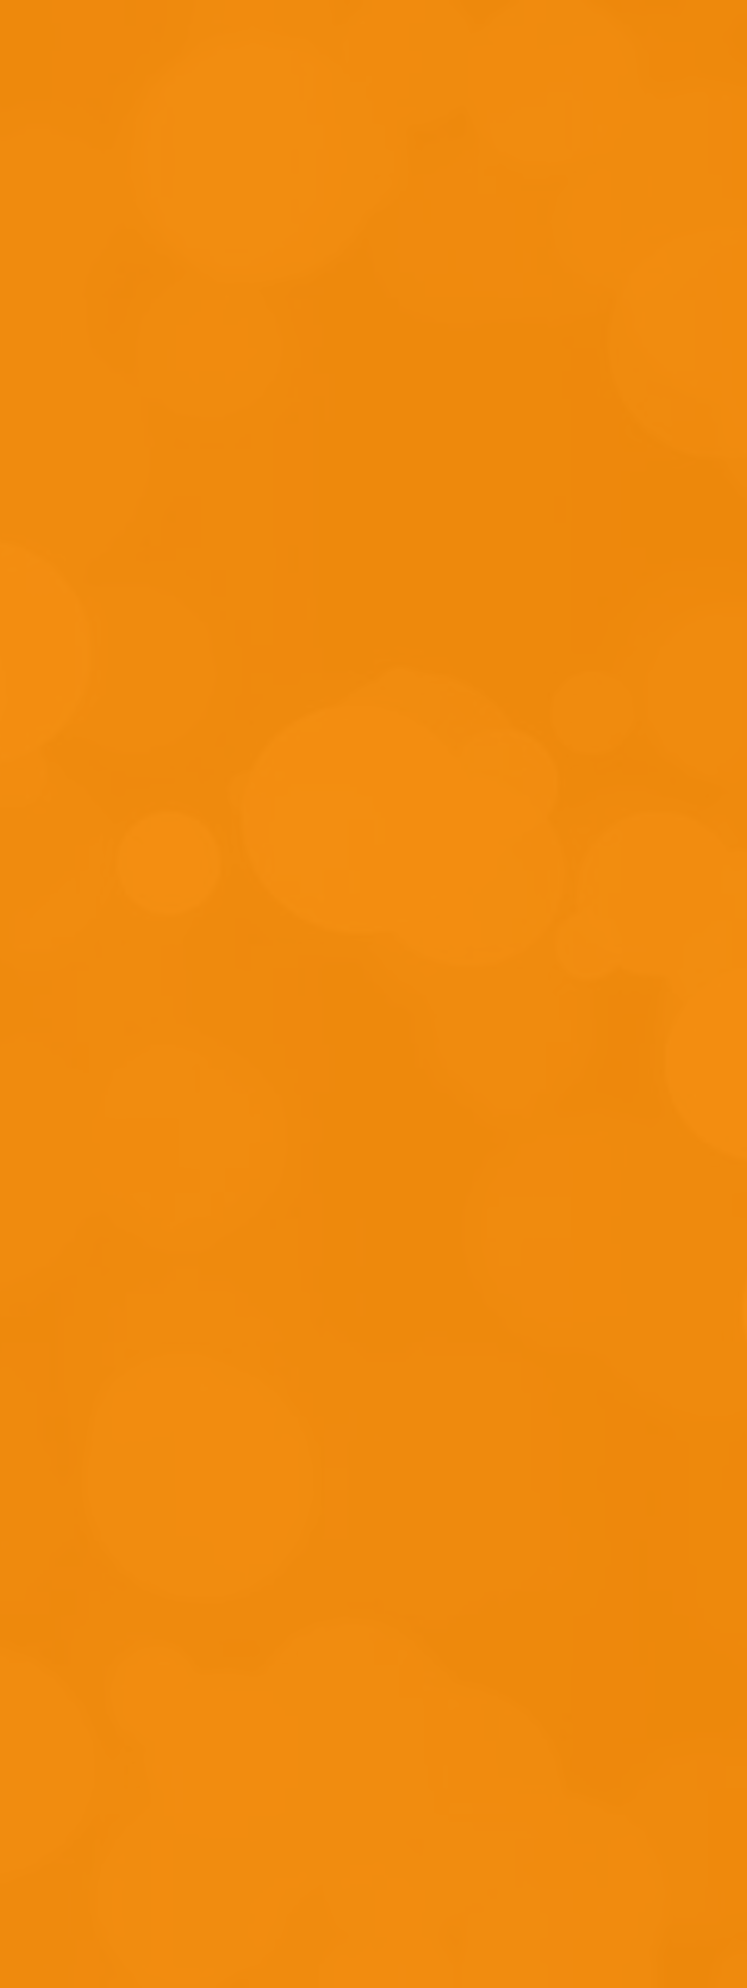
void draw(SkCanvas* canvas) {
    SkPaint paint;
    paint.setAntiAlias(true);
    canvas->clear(0xFFF48702);
    canvas->drawImageRect(SkImages::DeferredFromEncodedData(SkData::MakeFromFileName("img1.png")), SkRect::MakeXYWH(0, 0, 747, 1988), SkSamplingOptions());
}
